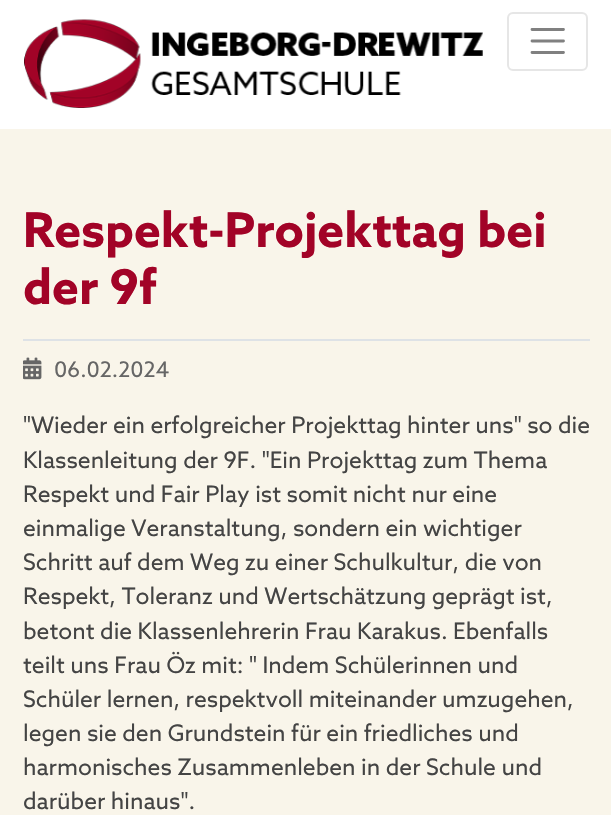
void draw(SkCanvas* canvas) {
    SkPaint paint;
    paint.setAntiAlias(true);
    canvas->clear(0xFFFFFFFF);
    canvas->drawImageRect(SkImages::DeferredFromEncodedData(SkData::MakeFromFileName("img1.png")), SkRect::MakeXYWH(24, 19, 459, 89), SkSamplingOptions());
    paint.setStyle(SkPaint::kStroke_Style);
    paint.setStrokeWidth(2);
    paint.setColor(0xFFE6E6E6);
    canvas->drawRoundRect(SkRect::MakeXYWH(508, 13, 79, 57), 5, 5, paint);
    paint.setStrokeWidth(2.8f);
    paint.setStrokeCap(SkPaint::kRound_Cap);
    paint.setColor(0xFF808080);
    canvas->drawPath(SkPathBuilder().moveTo(532, 29.5f).lineTo(563.5f, 29.5f).moveTo(532, 41).lineTo(563.5f, 41).moveTo(532, 52.5f).lineTo(563.5f, 52.5f).detach(), paint);
    paint.setStyle(SkPaint::kFill_Style);
    paint.setColor(0xFFF9F5EA);
    canvas->drawRect(SkRect::MakeXYWH(0, 129, 611, 686), paint);
    paint.setColor(0xFFDEE2E6);
    canvas->drawRect(SkRect::MakeXYWH(23, 339, 567, 2), paint);
    SkFont font1(fontMgr->matchFamilyStyle("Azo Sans", SkFontStyle::Bold()), 48);
    font1.setSubpixel(true);
    paint.setColor(0xFFA20327);
    canvas->drawString("Respekt-Projekttag bei", 23, 247, font1, paint);
    canvas->drawString("der 9f", 23, 304, font1, paint);
    canvas->drawImageRect(SkImages::DeferredFromEncodedData(SkData::MakeFromFileName("img2.png")), SkRect::MakeXYWH(23, 357, 19, 23), SkSamplingOptions());
    SkFont font2(fontMgr->matchFamilyStyle("Azo Sans", SkFontStyle::Normal()), 21.5f);
    font2.setSubpixel(true);
    paint.setColor(0xFF666666);
    canvas->drawString("06.02.2024", 54, 377, font2, paint);
    SkFont font3(fontMgr->matchFamilyStyle("Azo Sans", SkFontStyle::Normal()), 22.8f);
    font3.setSubpixel(true);
    paint.setColor(0xFF444444);
    canvas->drawString("\"Wieder ein erfolgreicher Projekttag hinter uns\" so die", 23, 433, font3, paint);
    canvas->drawString("Klassenleitung der 9F. \"Ein Projekttag zum Thema", 23, 468, font3, paint);
    canvas->drawString("Respekt und Fair Play ist somit nicht nur eine", 23, 502, font3, paint);
    canvas->drawString("einmalige Veranstaltung, sondern ein wichtiger", 23, 536, font3, paint);
    canvas->drawString("Schritt auf dem Weg zu einer Schulkultur, die von", 23, 570, font3, paint);
    canvas->drawString("Respekt, Toleranz und Wertschätzung geprägt ist,", 23, 604, font3, paint);
    canvas->drawString("betont die Klassenlehrerin Frau Karakus. Ebenfalls", 23, 639, font3, paint);
    canvas->drawString("teilt uns Frau Öz mit: \" Indem Schülerinnen und", 23, 673, font3, paint);
    canvas->drawString("Schüler lernen, respektvoll miteinander umzugehen,", 23, 707, font3, paint);
    canvas->drawString("legen sie den Grundstein für ein friedliches und", 23, 741, font3, paint);
    canvas->drawString("harmonisches Zusammenleben in der Schule und", 23, 775, font3, paint);
    canvas->drawString("darüber hinaus\".", 23, 809, font3, paint);
}
